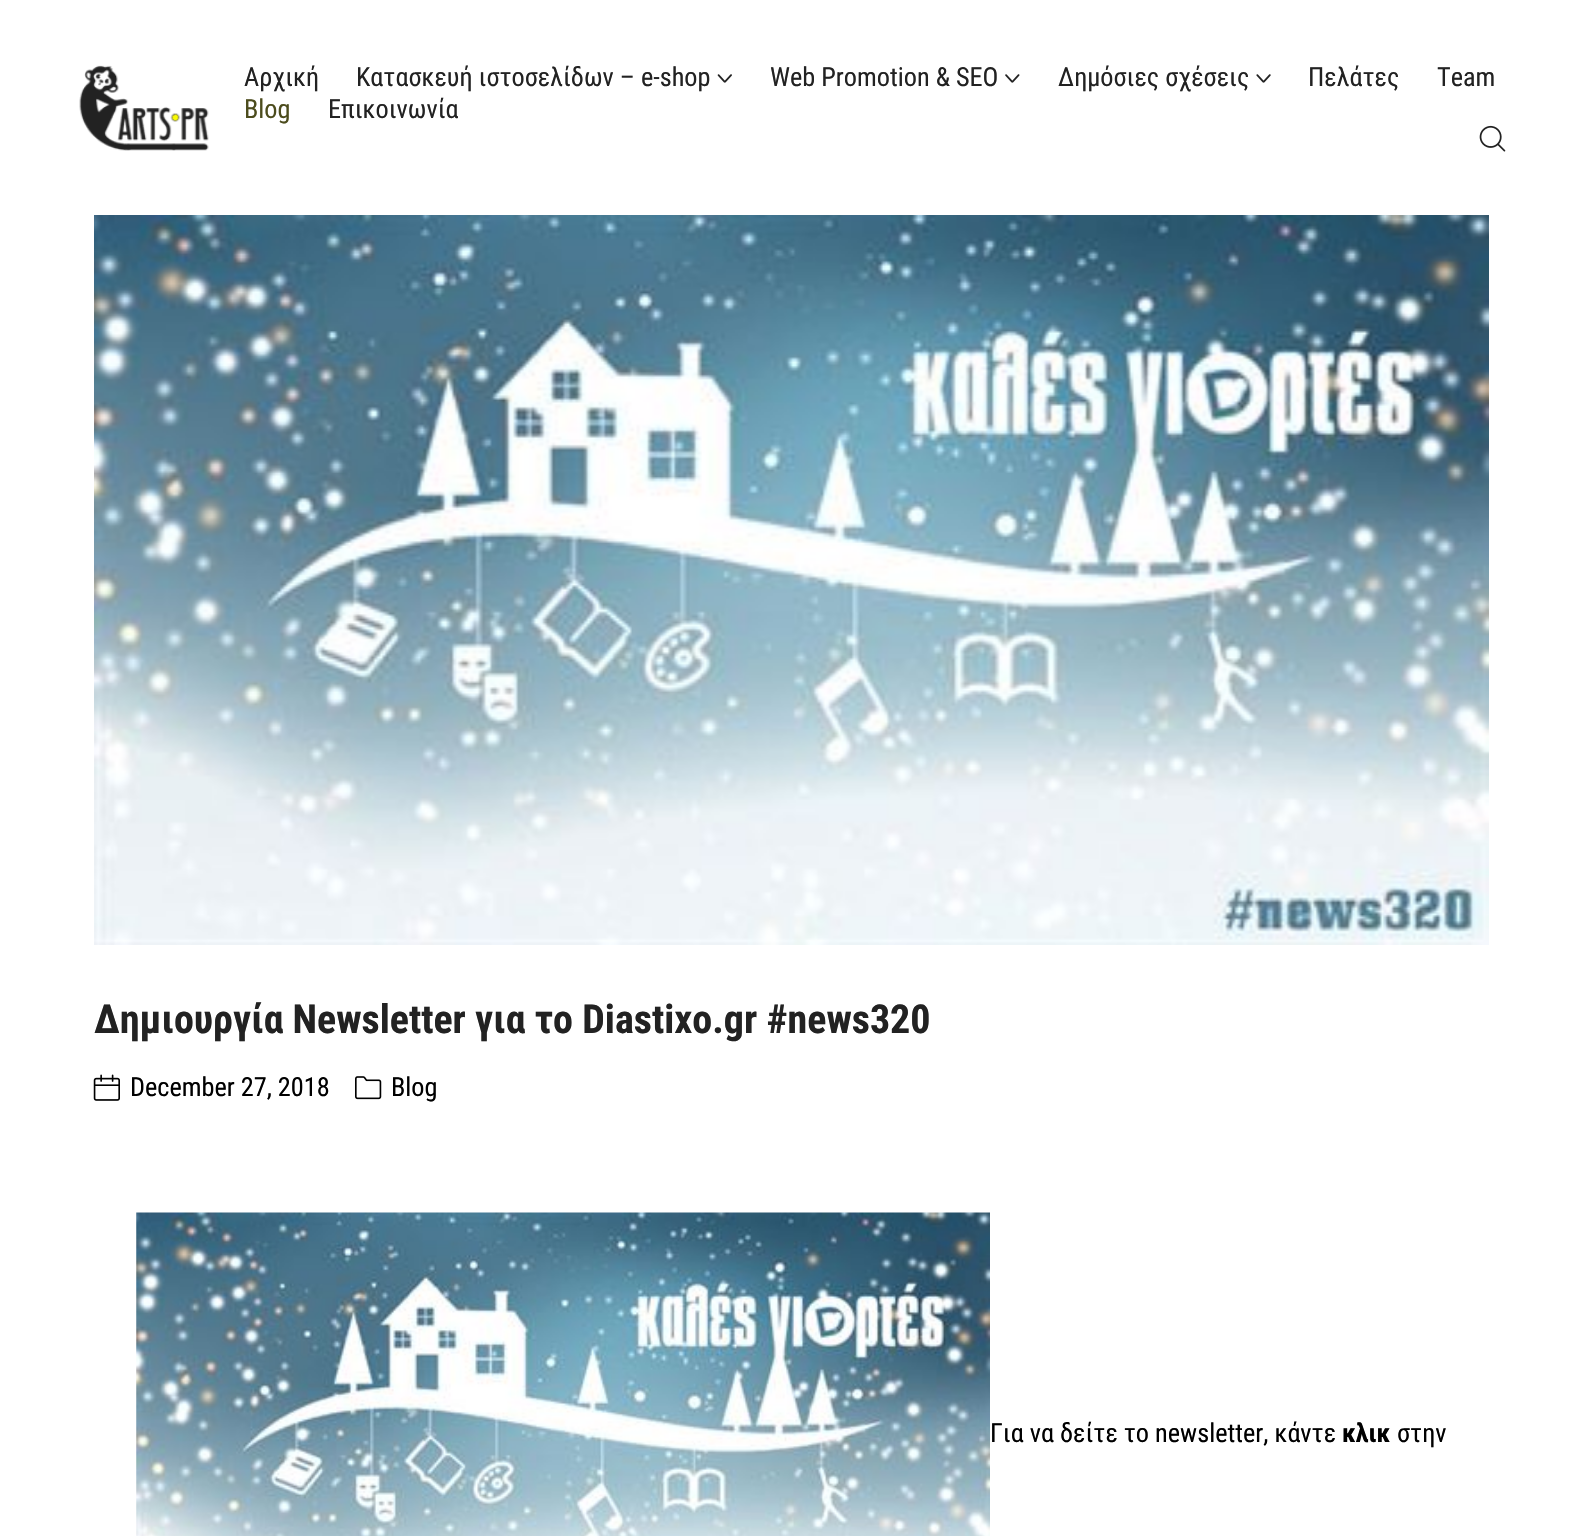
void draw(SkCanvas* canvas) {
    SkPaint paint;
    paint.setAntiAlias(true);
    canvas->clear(0xFFFFFFFF);
    canvas->drawImageRect(SkImages::DeferredFromEncodedData(SkData::MakeFromFileName("img1.png")), SkRect::MakeXYWH(79, 65, 130, 86), SkSamplingOptions());
    SkFont font1(fontMgr->matchFamilyStyle("Roboto Condensed", SkFontStyle::Normal()), 26.25f);
    font1.setSubpixel(true);
    paint.setColor(0xFF222222);
    canvas->drawString("Αρχική", 244, 86, font1, paint);
    canvas->drawString("Κατασκευή ιστοσελίδων – e-shop", 356, 86, font1, paint);
    canvas->drawImageRect(SkImages::DeferredFromEncodedData(SkData::MakeFromFileName("img2.png")), SkRect::MakeXYWH(717, 74, 15, 9), SkSamplingOptions());
    canvas->drawString("Web Promotion & SEO", 770, 86, font1, paint);
    canvas->drawImageRect(SkImages::DeferredFromEncodedData(SkData::MakeFromFileName("img3.png")), SkRect::MakeXYWH(1005, 74, 15, 9), SkSamplingOptions());
    canvas->drawString("Δημόσιες σχέσεις", 1058, 86, font1, paint);
    canvas->drawImageRect(SkImages::DeferredFromEncodedData(SkData::MakeFromFileName("img4.png")), SkRect::MakeXYWH(1256, 74, 15, 9), SkSamplingOptions());
    canvas->drawString("Πελάτες", 1308, 86, font1, paint);
    canvas->drawString("Team", 1437, 86, font1, paint);
    paint.setColor(0xFF4C4C1D);
    canvas->drawString("Blog", 244, 118, font1, paint);
    paint.setColor(0xFF222222);
    canvas->drawString("Επικοινωνία", 328, 118, font1, paint);
    canvas->drawImageRect(SkImages::DeferredFromEncodedData(SkData::MakeFromFileName("img5.png")), SkRect::MakeXYWH(1479, 125, 27, 27), SkSamplingOptions());
    canvas->drawImageRect(SkImages::DeferredFromEncodedData(SkData::MakeFromFileName("img6.png")), SkRect::MakeXYWH(94, 215, 1395, 730), SkSamplingOptions());
    SkFont font2(fontMgr->matchFamilyStyle("Roboto Condensed", SkFontStyle::Bold()), 40);
    font2.setSubpixel(true);
    canvas->drawString("Δημιουργία Newsletter για το Diastixo.gr #news320", 94, 1033, font2, paint);
    canvas->drawImageRect(SkImages::DeferredFromEncodedData(SkData::MakeFromFileName("img7.png")), SkRect::MakeXYWH(93, 1074, 27, 27), SkSamplingOptions());
    paint.setColor(0xFF000000);
    canvas->drawString("December 27, 2018", 130, 1096, font1, paint);
    canvas->drawImageRect(SkImages::DeferredFromEncodedData(SkData::MakeFromFileName("img8.png")), SkRect::MakeXYWH(355, 1076, 27, 24), SkSamplingOptions());
    canvas->drawString("Blog", 391, 1096, font1, paint);
    canvas->drawImageRect(SkImages::DeferredFromEncodedData(SkData::MakeFromFileName("img9.png")), SkRect::MakeXYWH(136, 1212, 854, 324), SkSamplingOptions());
    canvas->drawString("Για να δείτε το newsletter, κάντε", 990, 1442, font1, paint);
    SkFont font3(fontMgr->matchFamilyStyle("Roboto Condensed", SkFontStyle::Bold()), 26.25f);
    font3.setSubpixel(true);
    canvas->drawString("κλικ", 1342, 1442, font3, paint);
    canvas->drawString("στην", 1397, 1442, font1, paint);
}
